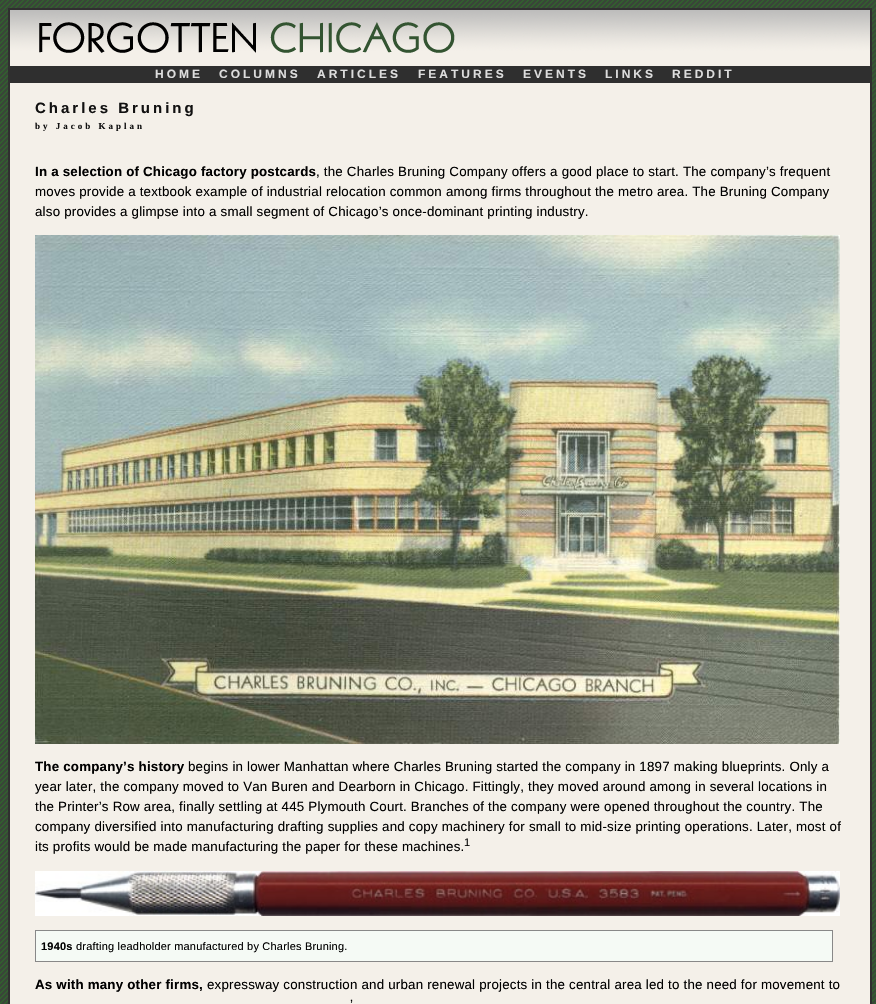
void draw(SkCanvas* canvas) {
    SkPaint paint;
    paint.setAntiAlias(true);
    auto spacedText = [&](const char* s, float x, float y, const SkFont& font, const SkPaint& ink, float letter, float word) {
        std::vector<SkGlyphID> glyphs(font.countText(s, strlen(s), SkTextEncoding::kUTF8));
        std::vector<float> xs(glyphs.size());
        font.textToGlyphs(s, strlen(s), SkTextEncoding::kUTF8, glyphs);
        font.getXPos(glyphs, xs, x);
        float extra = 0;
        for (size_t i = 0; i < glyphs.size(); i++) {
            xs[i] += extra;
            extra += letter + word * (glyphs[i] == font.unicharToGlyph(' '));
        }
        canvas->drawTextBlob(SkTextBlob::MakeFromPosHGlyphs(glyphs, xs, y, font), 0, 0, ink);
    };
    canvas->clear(0xFFFFFFFF);
    canvas->drawImageRect(SkImages::DeferredFromEncodedData(SkData::MakeFromFileName("img1.png")), SkRect::MakeXYWH(0, 0, 876, 1004), SkSamplingOptions());
    paint.setStyle(SkPaint::kStroke_Style);
    paint.setStrokeWidth(2);
    paint.setColor(0xFF2F2F2F);
    canvas->drawRect(SkRect::MakeXYWH(9, 9, 862, 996), paint);
    paint.setStyle(SkPaint::kFill_Style);
    paint.setColor(0xFFF4F0E9);
    canvas->drawRect(SkRect::MakeXYWH(10, 53, 860, 951), paint);
    canvas->drawImageRect(SkImages::DeferredFromEncodedData(SkData::MakeFromFileName("img2.png")), SkRect::MakeXYWH(10, 10, 860, 43), SkSamplingOptions());
    paint.setColor(0xFF2F2F2F);
    canvas->drawRect(SkRect::MakeXYWH(10, 66, 860, 17), paint);
    SkFont font1(fontMgr->matchFamilyStyle("Liberation Sans", SkFontStyle::Bold()), 12);
    font1.setSubpixel(true);
    paint.setColor(0xFFDDDDDD);
    spacedText("HOME", 155, 78, font1, paint, 3, 0);
    spacedText("COLUMNS", 219, 78, font1, paint, 3, 0);
    spacedText("ARTICLES", 317, 78, font1, paint, 3, 0);
    spacedText("FEATURES", 418, 78, font1, paint, 3, 0);
    spacedText("EVENTS", 523, 78, font1, paint, 3, 0);
    spacedText("LINKS", 605, 78, font1, paint, 3, 0);
    spacedText("REDDIT", 672, 78, font1, paint, 3, 0);
    SkFont font2(fontMgr->matchFamilyStyle("Liberation Sans", SkFontStyle::Bold()), 15);
    font2.setSubpixel(true);
    paint.setColor(0xFF111111);
    spacedText("Charles Bruning", 35, 113, font2, paint, 3, 0);
    SkFont font3(fontMgr->matchFamilyStyle("Liberation Serif", SkFontStyle::Bold()), 9);
    font3.setSubpixel(true);
    spacedText("by Jacob Kaplan", 35, 129, font3, paint, 3, 0);
    SkFont font4(fontMgr->matchFamilyStyle("Liberation Sans", SkFontStyle::Bold()), 13.33f);
    font4.setSubpixel(true);
    paint.setColor(0xFF000000);
    spacedText("In a selection of Chicago factory postcards", 35, 176, font4, paint, 0.2f, 0);
    SkFont font5(fontMgr->matchFamilyStyle("Liberation Sans", SkFontStyle::Normal()), 13.33f);
    font5.setSubpixel(true);
    spacedText(", the Charles Bruning Company offers a good place to start. The company’s frequent", 316, 176, font5, paint, 0.2f, 0);
    spacedText("moves provide a textbook example of industrial relocation common among firms throughout the metro area. The Bruning Company", 35, 196, font5, paint, 0.2f, 0);
    spacedText("also provides a glimpse into a small segment of Chicago’s once-dominant printing industry.", 35, 216, font5, paint, 0.2f, 0);
    canvas->drawImageRect(SkImages::DeferredFromEncodedData(SkData::MakeFromFileName("img3.png")), SkRect::MakeXYWH(35, 235, 805, 509), SkSamplingOptions());
    spacedText("The company’s history", 35, 771, font4, paint, 0.2f, 0);
    spacedText("begins in lower Manhattan where Charles Bruning started the company in 1897 making blueprints. Only a", 188, 771, font5, paint, 0.2f, 0);
    spacedText("year later, the company moved to Van Buren and Dearborn in Chicago. Fittingly, they moved around among in several locations in", 35, 791, font5, paint, 0.2f, 0);
    spacedText("the Printer’s Row area, finally settling at 445 Plymouth Court. Branches of the company were opened throughout the country. The", 35, 811, font5, paint, 0.2f, 0);
    spacedText("company diversified into manufacturing drafting supplies and copy machinery for small to mid-size printing operations. Later, most of", 35, 831, font5, paint, 0.2f, 0);
    spacedText("its profits would be made manufacturing the paper for these machines.", 35, 851, font5, paint, 0.2f, 0);
    SkFont font6(fontMgr->matchFamilyStyle("Liberation Sans", SkFontStyle::Normal()), 11);
    font6.setSubpixel(true);
    spacedText("1", 464, 846, font6, paint, 0.2f, 0);
    canvas->drawImageRect(SkImages::DeferredFromEncodedData(SkData::MakeFromFileName("img4.png")), SkRect::MakeXYWH(35, 871, 805, 45), SkSamplingOptions());
    paint.setColor(0xFFF5FAF5);
    canvas->drawRect(SkRect::MakeXYWH(35.5f, 930.5f, 797, 31), paint);
    paint.setStyle(SkPaint::kStroke_Style);
    paint.setStrokeWidth(1);
    paint.setColor(0xFF888888);
    canvas->drawRect(SkRect::MakeXYWH(35.5f, 930.5f, 797, 31), paint);
    SkFont font7(fontMgr->matchFamilyStyle("Liberation Sans", SkFontStyle::Bold()), 11);
    font7.setSubpixel(true);
    paint.setStyle(SkPaint::kFill_Style);
    paint.setColor(0xFF000000);
    spacedText("1940s", 41, 950, font7, paint, 0.2f, 0);
    spacedText("drafting leadholder manufactured by Charles Bruning.", 76, 950, font6, paint, 0.2f, 0);
    spacedText("As with many other firms,", 35, 989, font4, paint, 0.2f, 0);
    spacedText("expressway construction and urban renewal projects in the central area led to the need for movement to", 207, 989, font5, paint, 0.2f, 0);
    spacedText("’", 350, 1009, font5, paint, 0.2f, 0);
}
